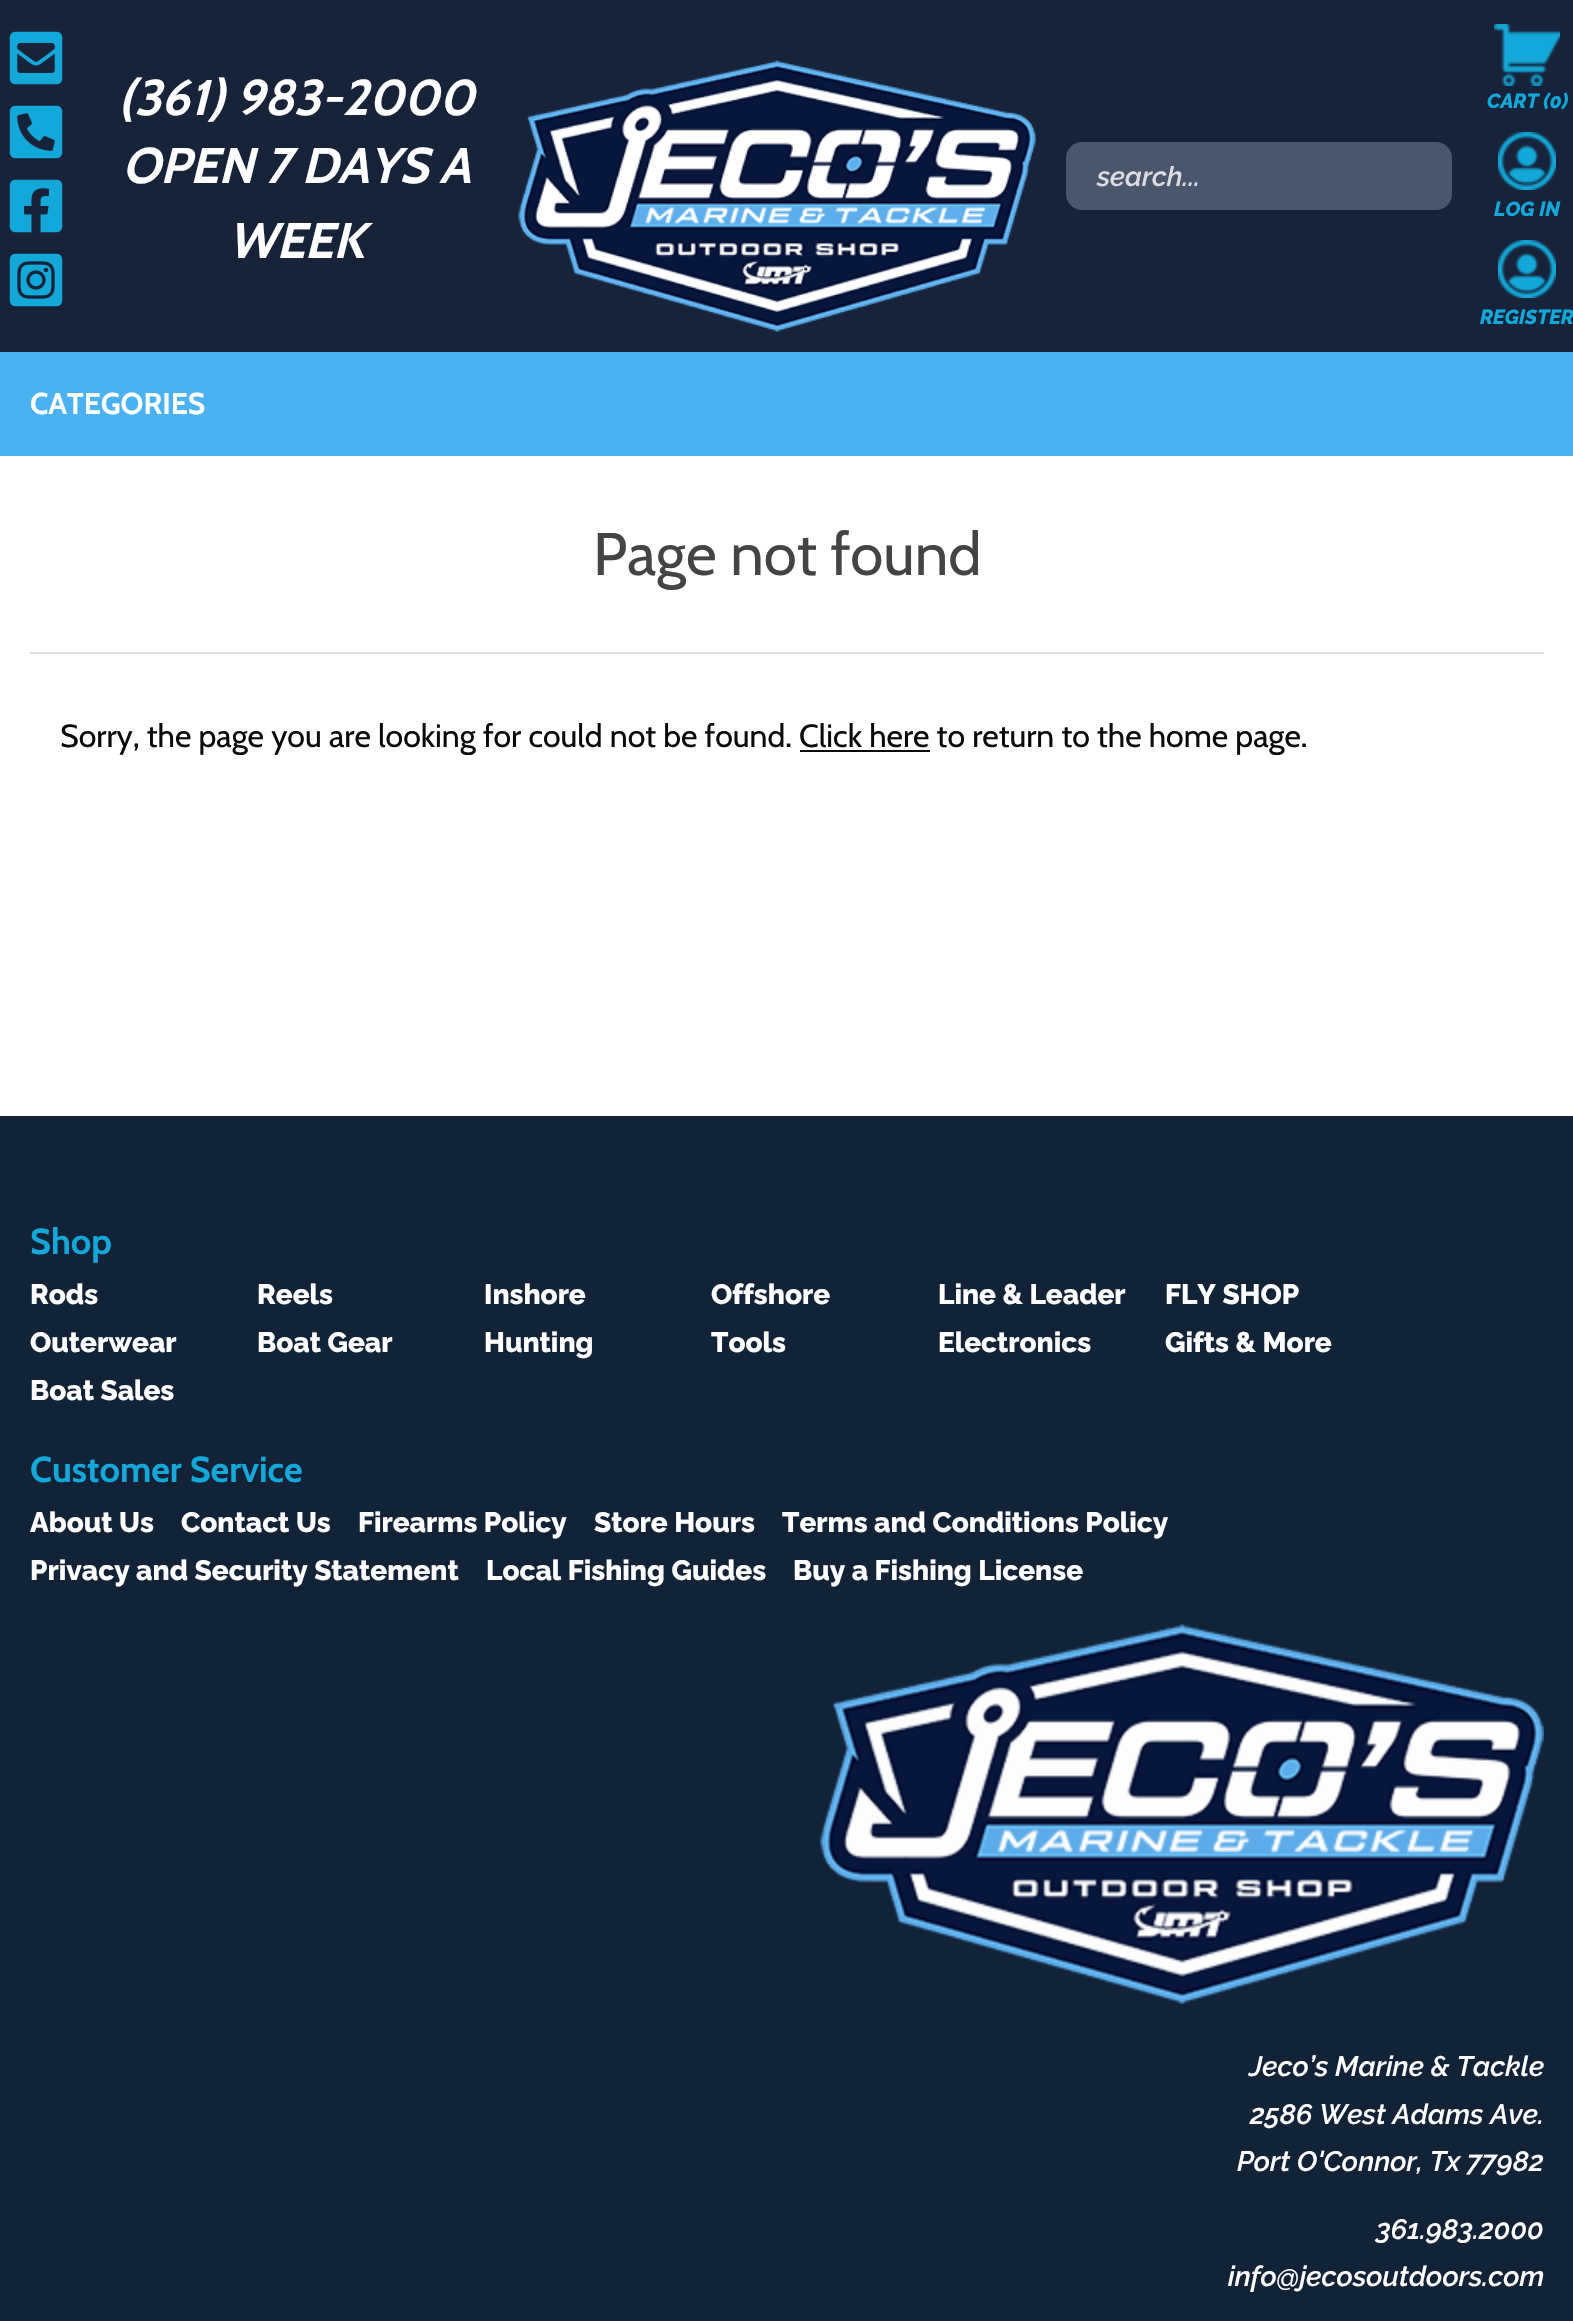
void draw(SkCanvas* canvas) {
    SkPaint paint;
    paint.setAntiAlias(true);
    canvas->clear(0xFFFFFFFF);
    paint.setColor(0xFF172339);
    canvas->drawRect(SkRect::MakeXYWH(0, 0, 1573, 352), paint);
    canvas->drawImageRect(SkImages::DeferredFromEncodedData(SkData::MakeFromFileName("img1.png")), SkRect::MakeXYWH(9, 31, 54, 54), SkSamplingOptions());
    canvas->drawImageRect(SkImages::DeferredFromEncodedData(SkData::MakeFromFileName("img2.png")), SkRect::MakeXYWH(9, 105, 54, 54), SkSamplingOptions());
    canvas->drawImageRect(SkImages::DeferredFromEncodedData(SkData::MakeFromFileName("img3.png")), SkRect::MakeXYWH(9, 179, 54, 54), SkSamplingOptions());
    canvas->drawImageRect(SkImages::DeferredFromEncodedData(SkData::MakeFromFileName("img4.png")), SkRect::MakeXYWH(9, 253, 54, 54), SkSamplingOptions());
    SkFont font1(fontMgr->matchFamilyStyle("Cabin", SkFontStyle::BoldItalic()), 50);
    font1.setSubpixel(true);
    paint.setColor(0xFFFFFFFF);
    canvas->drawString("(361) 983-2000", 118, 115, font1, paint);
    canvas->drawString("OPEN 7 DAYS A", 122, 183, font1, paint);
    canvas->drawString("WEEK", 228, 258, font1, paint);
    canvas->drawImageRect(SkImages::DeferredFromEncodedData(SkData::MakeFromFileName("img5.png")), SkRect::MakeXYWH(518, 60, 518, 272), SkSamplingOptions());
    paint.setColor(0xFF4A566C);
    canvas->drawRoundRect(SkRect::MakeXYWH(1066, 142, 386, 68), 16, 16, paint);
    SkFont font2(fontMgr->matchFamilyStyle("Raleway", SkFontStyle(600, SkFontStyle::kNormal_Width, SkFontStyle::kItalic_Slant)), 27.5f);
    font2.setSubpixel(true);
    paint.setColor(0xFFDBDDE2);
    canvas->drawString("search...", 1097, 186, font2, paint);
    canvas->drawImageRect(SkImages::DeferredFromEncodedData(SkData::MakeFromFileName("img6.png")), SkRect::MakeXYWH(1494, 24, 66, 62), SkSamplingOptions());
    SkFont font3(fontMgr->matchFamilyStyle("Raleway", SkFontStyle(800, SkFontStyle::kNormal_Width, SkFontStyle::kItalic_Slant)), 20.25f);
    font3.setSubpixel(true);
    paint.setColor(0xFF13A8D9);
    canvas->drawString("CART (0)", 1487, 108, font3, paint);
    canvas->drawImageRect(SkImages::DeferredFromEncodedData(SkData::MakeFromFileName("img7.png")), SkRect::MakeXYWH(1498, 132, 58, 58), SkSamplingOptions());
    canvas->drawString("LOG IN", 1494, 216, font3, paint);
    canvas->drawImageRect(SkImages::DeferredFromEncodedData(SkData::MakeFromFileName("img7.png")), SkRect::MakeXYWH(1498, 240, 58, 58), SkSamplingOptions());
    canvas->drawString("REGISTER", 1480, 324, font3, paint);
    paint.setColor(0xFF4AB2F1);
    canvas->drawRect(SkRect::MakeXYWH(0, 352, 1573, 104), paint);
    SkFont font4(fontMgr->matchFamilyStyle("Cabin", SkFontStyle::Bold()), 30);
    font4.setSubpixel(true);
    paint.setColor(0xFFFFFFFF);
    canvas->drawString("CATEGORIES", 30, 414, font4, paint);
    paint.setColor(0xFFDDDDDD);
    canvas->drawRect(SkRect::MakeXYWH(30, 652, 1514, 2), paint);
    SkFont font5(fontMgr->matchFamilyStyle("Cabin", SkFontStyle::Normal()), 60);
    font5.setSubpixel(true);
    paint.setColor(0xFF444444);
    canvas->drawString("Page not found", 593, 575, font5, paint);
    SkFont font6(fontMgr->matchFamilyStyle("Cabin", SkFontStyle::Normal()), 32);
    font6.setSubpixel(true);
    paint.setColor(0xFF0A0A0A);
    canvas->drawString("Sorry, the page you are looking for could not be found. Click here to return to the home page.", 60, 747, font6, paint);
    canvas->drawRect(SkRect::MakeXYWH(800, 750, 130, 2), paint);
    paint.setColor(0xFF132337);
    canvas->drawRect(SkRect::MakeXYWH(0, 1116, 1573, 1205), paint);
    SkFont font7(fontMgr->matchFamilyStyle("Cabin", SkFontStyle::Bold()), 36);
    font7.setSubpixel(true);
    paint.setColor(0xFF13A8D9);
    canvas->drawString("Shop", 30, 1254, font7, paint);
    SkFont font8(fontMgr->matchFamilyStyle("Raleway", SkFontStyle(800, SkFontStyle::kNormal_Width, SkFontStyle::kUpright_Slant)), 28);
    font8.setSubpixel(true);
    paint.setColor(0xFFFFFFFF);
    canvas->drawString("Rods", 30, 1304, font8, paint);
    canvas->drawString("Reels", 257, 1304, font8, paint);
    canvas->drawString("Inshore", 484, 1304, font8, paint);
    canvas->drawString("Offshore", 711, 1304, font8, paint);
    canvas->drawString("Line & Leader", 938, 1304, font8, paint);
    canvas->drawString("FLY SHOP", 1165, 1304, font8, paint);
    canvas->drawString("Outerwear", 30, 1352, font8, paint);
    canvas->drawString("Boat Gear", 257, 1352, font8, paint);
    canvas->drawString("Hunting", 484, 1352, font8, paint);
    canvas->drawString("Tools", 711, 1352, font8, paint);
    canvas->drawString("Electronics", 938, 1352, font8, paint);
    canvas->drawString("Gifts & More", 1165, 1352, font8, paint);
    canvas->drawString("Boat Sales", 30, 1400, font8, paint);
    paint.setColor(0xFF13A8D9);
    canvas->drawString("Customer Service", 30, 1482, font7, paint);
    paint.setColor(0xFFFFFFFF);
    canvas->drawString("About Us", 30, 1532, font8, paint);
    canvas->drawString("Contact Us", 181, 1532, font8, paint);
    canvas->drawString("Firearms Policy", 358, 1532, font8, paint);
    canvas->drawString("Store Hours", 594, 1532, font8, paint);
    canvas->drawString("Terms and Conditions Policy", 782, 1532, font8, paint);
    canvas->drawString("Privacy and Security Statement", 30, 1580, font8, paint);
    canvas->drawString("Local Fishing Guides", 486, 1580, font8, paint);
    canvas->drawString("Buy a Fishing License", 793, 1580, font8, paint);
    canvas->drawImageRect(SkImages::DeferredFromEncodedData(SkData::MakeFromFileName("img8.png")), SkRect::MakeXYWH(820, 1624, 724, 380), SkSamplingOptions());
    SkFont font9(fontMgr->matchFamilyStyle("Raleway", SkFontStyle(600, SkFontStyle::kNormal_Width, SkFontStyle::kItalic_Slant)), 28);
    font9.setSubpixel(true);
    canvas->drawString("Jeco’s Marine & Tackle", 1249, 2076, font9, paint);
    canvas->drawString("2586 West Adams Ave.", 1250, 2124, font9, paint);
    canvas->drawString("Port O'Connor, Tx 77982", 1237, 2171, font9, paint);
    canvas->drawString("361.983.2000", 1376, 2239, font9, paint);
    canvas->drawString("info@jecosoutdoors.com", 1228, 2286, font9, paint);
}
